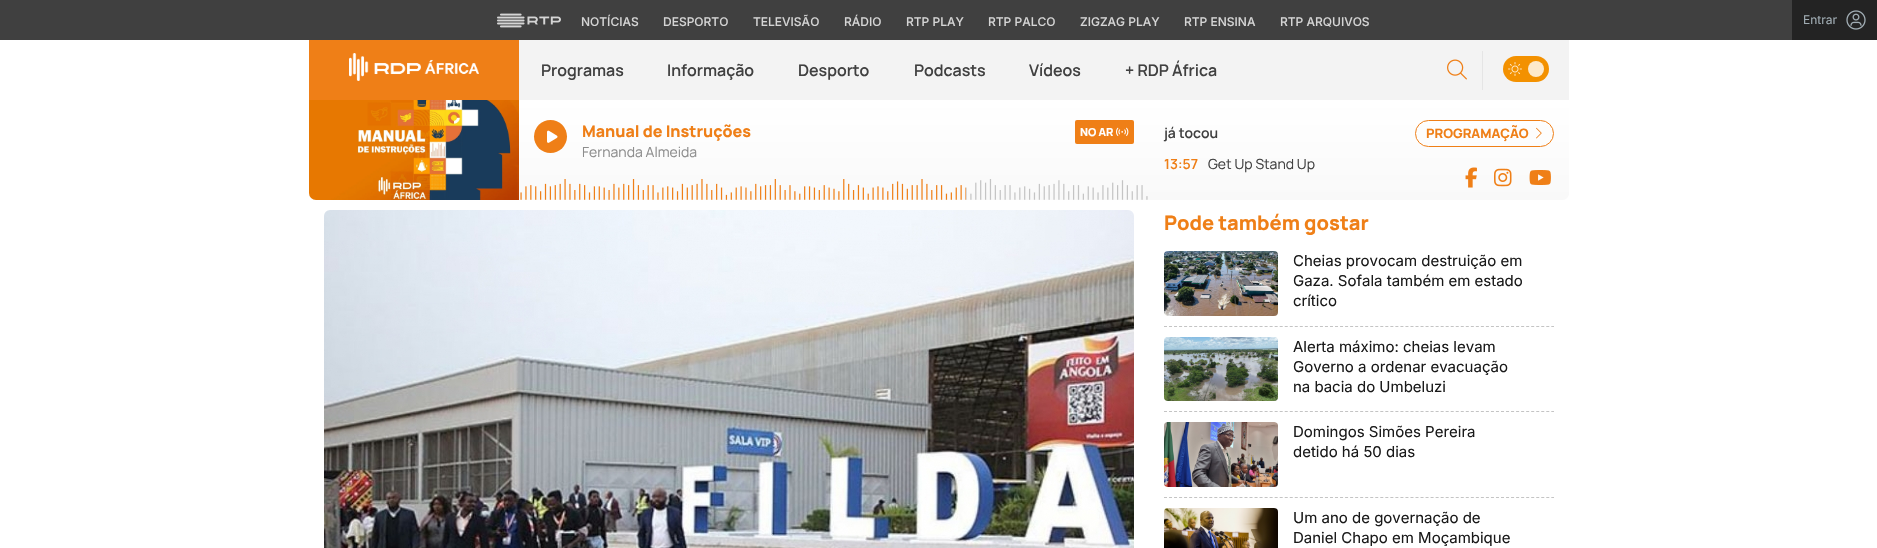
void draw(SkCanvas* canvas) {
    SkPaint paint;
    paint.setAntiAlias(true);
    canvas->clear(0xFFFFFFFF);
    paint.setColor(0xFF404040);
    canvas->drawRect(SkRect::MakeXYWH(0, 0, 1792, 40), paint);
    canvas->drawImageRect(SkImages::DeferredFromEncodedData(SkData::MakeFromFileName("img1.png")), SkRect::MakeXYWH(497, 13, 64, 15), SkSamplingOptions());
    SkFont font1(fontMgr->matchFamilyStyle("Inter", SkFontStyle(500, SkFontStyle::kNormal_Width, SkFontStyle::kUpright_Slant)), 12);
    font1.setSubpixel(true);
    paint.setColor(0xFFD5D5D5);
    canvas->drawString("NOTÍCIAS", 581, 26, font1, paint);
    canvas->drawString("DESPORTO", 663, 26, font1, paint);
    canvas->drawString("TELEVISÃO", 753, 26, font1, paint);
    canvas->drawString("RÁDIO", 844, 26, font1, paint);
    canvas->drawString("RTP PLAY", 906, 26, font1, paint);
    canvas->drawString("RTP PALCO", 988, 26, font1, paint);
    canvas->drawString("ZIGZAG PLAY", 1080, 26, font1, paint);
    canvas->drawString("RTP ENSINA", 1184, 26, font1, paint);
    canvas->drawString("RTP ARQUIVOS", 1280, 26, font1, paint);
    paint.setColor(0xFF232323);
    canvas->drawRect(SkRect::MakeXYWH(1792, 0, 85, 40), paint);
    SkFont font2(fontMgr->matchFamilyStyle("Inter", SkFontStyle::Normal()), 12);
    font2.setSubpixel(true);
    paint.setColor(0xFFA0ACB3);
    canvas->drawString("Entrar", 1803, 24, font2, paint);
    canvas->drawImageRect(SkImages::DeferredFromEncodedData(SkData::MakeFromFileName("img2.png")), SkRect::MakeXYWH(1846, 10, 20, 20), SkSamplingOptions());
    paint.setColor(0xFFF3F3F3);
    canvas->drawRect(SkRect::MakeXYWH(519, 40, 1050, 60), paint);
    paint.setColor(0xFFEF7F17);
    canvas->drawRect(SkRect::MakeXYWH(309, 40, 210, 60), paint);
    canvas->drawImageRect(SkImages::DeferredFromEncodedData(SkData::MakeFromFileName("img3.png")), SkRect::MakeXYWH(349, 53, 130, 28), SkSamplingOptions());
    SkFont font3(fontMgr->matchFamilyStyle("Manrope", SkFontStyle(600, SkFontStyle::kNormal_Width, SkFontStyle::kUpright_Slant)), 16);
    font3.setSubpixel(true);
    paint.setColor(0xFF404040);
    canvas->drawString("Programas", 541, 76, font3, paint);
    canvas->drawString("Informação", 667, 76, font3, paint);
    canvas->drawString("Desporto", 798, 76, font3, paint);
    canvas->drawString("Podcasts", 914, 76, font3, paint);
    canvas->drawString("Vídeos", 1029, 76, font3, paint);
    canvas->drawString("+ RDP África", 1125, 76, font3, paint);
    canvas->drawImageRect(SkImages::DeferredFromEncodedData(SkData::MakeFromFileName("img4.png")), SkRect::MakeXYWH(1447, 59, 20, 21), SkSamplingOptions());
    paint.setColor(0xFFE5E5E5);
    canvas->drawRect(SkRect::MakeXYWH(1482, 51, 1, 39), paint);
    paint.setColor(0xFFF39100);
    canvas->drawRoundRect(SkRect::MakeXYWH(1503, 56, 46, 26), 13, 13, paint);
    canvas->drawImageRect(SkImages::DeferredFromEncodedData(SkData::MakeFromFileName("img5.png")), SkRect::MakeXYWH(1508, 62, 14, 14), SkSamplingOptions());
    paint.setColor(0xFFFDE9CC);
    canvas->drawCircle(1536, 69, 8, paint);
    {
        const SkColor colors[] = {0xFFF3F3F3, 0xFFFFFFFF};
        const float stops[] = {0, 1};
        const SkPoint ends[] = {{939, 300}, {939, 100}};
        paint.setShader(SkGradientShader::MakeLinear(ends, colors, stops, 2, SkTileMode::kClamp));
        paint.setAlpha(255);
    }
    canvas->drawPath(SkPathBuilder().moveTo(309, 100).lineTo(1569, 100).lineTo(1569, 193).cubicTo(1569, 197, 1566, 200, 1562, 200).lineTo(316, 200).cubicTo(312, 200, 309, 197, 309, 193).close().detach(), paint);
    canvas->drawImageRect(SkImages::DeferredFromEncodedData(SkData::MakeFromFileName("img6.png")), SkRect::MakeXYWH(309, 100, 210, 100), SkSamplingOptions());
    paint.setShader(nullptr);
    paint.setColor(0xFFEF7F17);
    canvas->drawCircle(550.5f, 136.5f, 16.5f, paint);
    canvas->drawImageRect(SkImages::DeferredFromEncodedData(SkData::MakeFromFileName("img7.png")), SkRect::MakeXYWH(547, 130, 11, 13), SkSamplingOptions());
    SkFont font4(fontMgr->matchFamilyStyle("Manrope", SkFontStyle(800, SkFontStyle::kNormal_Width, SkFontStyle::kUpright_Slant)), 16);
    font4.setSubpixel(true);
    canvas->drawString("Manual de Instruções", 582, 137, font4, paint);
    SkFont font5(fontMgr->matchFamilyStyle("Manrope", SkFontStyle::Normal()), 14);
    font5.setSubpixel(true);
    paint.setColor(0xFF8D8D8D);
    canvas->drawString("Fernanda Almeida", 582, 157, font5, paint);
    paint.setColor(0xFFEF7F17);
    canvas->drawRoundRect(SkRect::MakeXYWH(1075, 120, 59, 24), 2, 2, paint);
    SkFont font6(fontMgr->matchFamilyStyle("Manrope", SkFontStyle(800, SkFontStyle::kNormal_Width, SkFontStyle::kUpright_Slant)), 11);
    font6.setSubpixel(true);
    paint.setColor(0xFFFFFFFF);
    canvas->drawString("NO AR", 1080, 136, font6, paint);
    canvas->drawImageRect(SkImages::DeferredFromEncodedData(SkData::MakeFromFileName("img8.png")), SkRect::MakeXYWH(1116, 127, 13, 9), SkSamplingOptions());
    canvas->drawImageRect(SkImages::DeferredFromEncodedData(SkData::MakeFromFileName("img9.png")), SkRect::MakeXYWH(520, 179, 628, 21), SkSamplingOptions());
    SkFont font7(fontMgr->matchFamilyStyle("Manrope", SkFontStyle(600, SkFontStyle::kNormal_Width, SkFontStyle::kUpright_Slant)), 14);
    font7.setSubpixel(true);
    paint.setColor(0xFF404040);
    canvas->drawString("já tocou", 1164, 138, font7, paint);
    paint.setStyle(SkPaint::kStroke_Style);
    paint.setStrokeWidth(1);
    paint.setColor(0xFFEF7F17);
    canvas->drawRoundRect(SkRect::MakeXYWH(1415.5f, 120.5f, 138, 26), 13, 13, paint);
    SkFont font8(fontMgr->matchFamilyStyle("Manrope", SkFontStyle(800, SkFontStyle::kNormal_Width, SkFontStyle::kUpright_Slant)), 13);
    font8.setSubpixel(true);
    paint.setStyle(SkPaint::kFill_Style);
    canvas->drawString("PROGRAMAÇÃO", 1426, 138, font8, paint);
    canvas->drawImageRect(SkImages::DeferredFromEncodedData(SkData::MakeFromFileName("img10.png")), SkRect::MakeXYWH(1536, 127, 6, 12), SkSamplingOptions());
    canvas->drawString("13:57", 1164, 169, font7, paint);
    paint.setColor(0xFF404040);
    canvas->drawString("Get Up Stand Up", 1208, 169, font5, paint);
    canvas->drawImageRect(SkImages::DeferredFromEncodedData(SkData::MakeFromFileName("img11.png")), SkRect::MakeXYWH(1465, 167, 12, 21), SkSamplingOptions());
    canvas->drawImageRect(SkImages::DeferredFromEncodedData(SkData::MakeFromFileName("img12.png")), SkRect::MakeXYWH(1494, 168, 18, 19), SkSamplingOptions());
    canvas->drawImageRect(SkImages::DeferredFromEncodedData(SkData::MakeFromFileName("img13.png")), SkRect::MakeXYWH(1529, 170, 22, 15), SkSamplingOptions());
    canvas->drawImageRect(SkImages::DeferredFromEncodedData(SkData::MakeFromFileName("img14.png")), SkRect::MakeXYWH(324, 210, 810, 338), SkSamplingOptions());
    SkFont font9(fontMgr->matchFamilyStyle("Manrope", SkFontStyle(800, SkFontStyle::kNormal_Width, SkFontStyle::kUpright_Slant)), 20);
    font9.setSubpixel(true);
    paint.setColor(0xFFEF7F17);
    canvas->drawString("Pode também gostar", 1164, 230, font9, paint);
    paint.setStyle(SkPaint::kStroke_Style);
    paint.setColor(0xFFC4C4C4);
    paint.setPathEffect(SkDashPathEffect::Make({{3, 2.03f}}, 0));
    canvas->drawPath(SkPathBuilder().moveTo(1164, 326.5f).lineTo(1554, 326.5f).detach(), paint);
    paint.setPathEffect(nullptr);
    canvas->drawImageRect(SkImages::DeferredFromEncodedData(SkData::MakeFromFileName("img15.png")), SkRect::MakeXYWH(1164, 251, 114, 65), SkSamplingOptions());
    SkFont font10(fontMgr->matchFamilyStyle("Inter", SkFontStyle::Normal()), 15);
    font10.setSubpixel(true);
    paint.setStyle(SkPaint::kFill_Style);
    paint.setColor(0xFF1A1A1A);
    canvas->drawString("Cheias provocam destruição em", 1293, 266, font10, paint);
    canvas->drawString("Gaza. Sofala também em estado", 1293, 286, font10, paint);
    canvas->drawString("crítico", 1293, 306, font10, paint);
    paint.setStyle(SkPaint::kStroke_Style);
    paint.setColor(0xFFC4C4C4);
    paint.setPathEffect(SkDashPathEffect::Make({{3, 2.03f}}, 0));
    canvas->drawPath(SkPathBuilder().moveTo(1164, 411.5f).lineTo(1554, 411.5f).detach(), paint);
    paint.setPathEffect(nullptr);
    canvas->drawImageRect(SkImages::DeferredFromEncodedData(SkData::MakeFromFileName("img16.png")), SkRect::MakeXYWH(1164, 337, 114, 64), SkSamplingOptions());
    paint.setStyle(SkPaint::kFill_Style);
    paint.setColor(0xFF1A1A1A);
    canvas->drawString("Alerta máximo: cheias levam", 1293, 352, font10, paint);
    canvas->drawString("Governo a ordenar evacuação", 1293, 372, font10, paint);
    canvas->drawString("na bacia do Umbeluzi", 1293, 392, font10, paint);
    paint.setStyle(SkPaint::kStroke_Style);
    paint.setColor(0xFFC4C4C4);
    paint.setPathEffect(SkDashPathEffect::Make({{3, 2.03f}}, 0));
    canvas->drawPath(SkPathBuilder().moveTo(1164, 497.5f).lineTo(1554, 497.5f).detach(), paint);
    paint.setPathEffect(nullptr);
    canvas->drawImageRect(SkImages::DeferredFromEncodedData(SkData::MakeFromFileName("img17.png")), SkRect::MakeXYWH(1164, 422, 114, 65), SkSamplingOptions());
    paint.setStyle(SkPaint::kFill_Style);
    paint.setColor(0xFF1A1A1A);
    canvas->drawString("Domingos Simões Pereira", 1293, 437, font10, paint);
    canvas->drawString("detido há 50 dias", 1293, 457, font10, paint);
    canvas->drawImageRect(SkImages::DeferredFromEncodedData(SkData::MakeFromFileName("img18.png")), SkRect::MakeXYWH(1164, 508, 114, 40), SkSamplingOptions());
    canvas->drawString("Um ano de governação de", 1293, 523, font10, paint);
    canvas->drawString("Daniel Chapo em Moçambique", 1293, 543, font10, paint);
}
